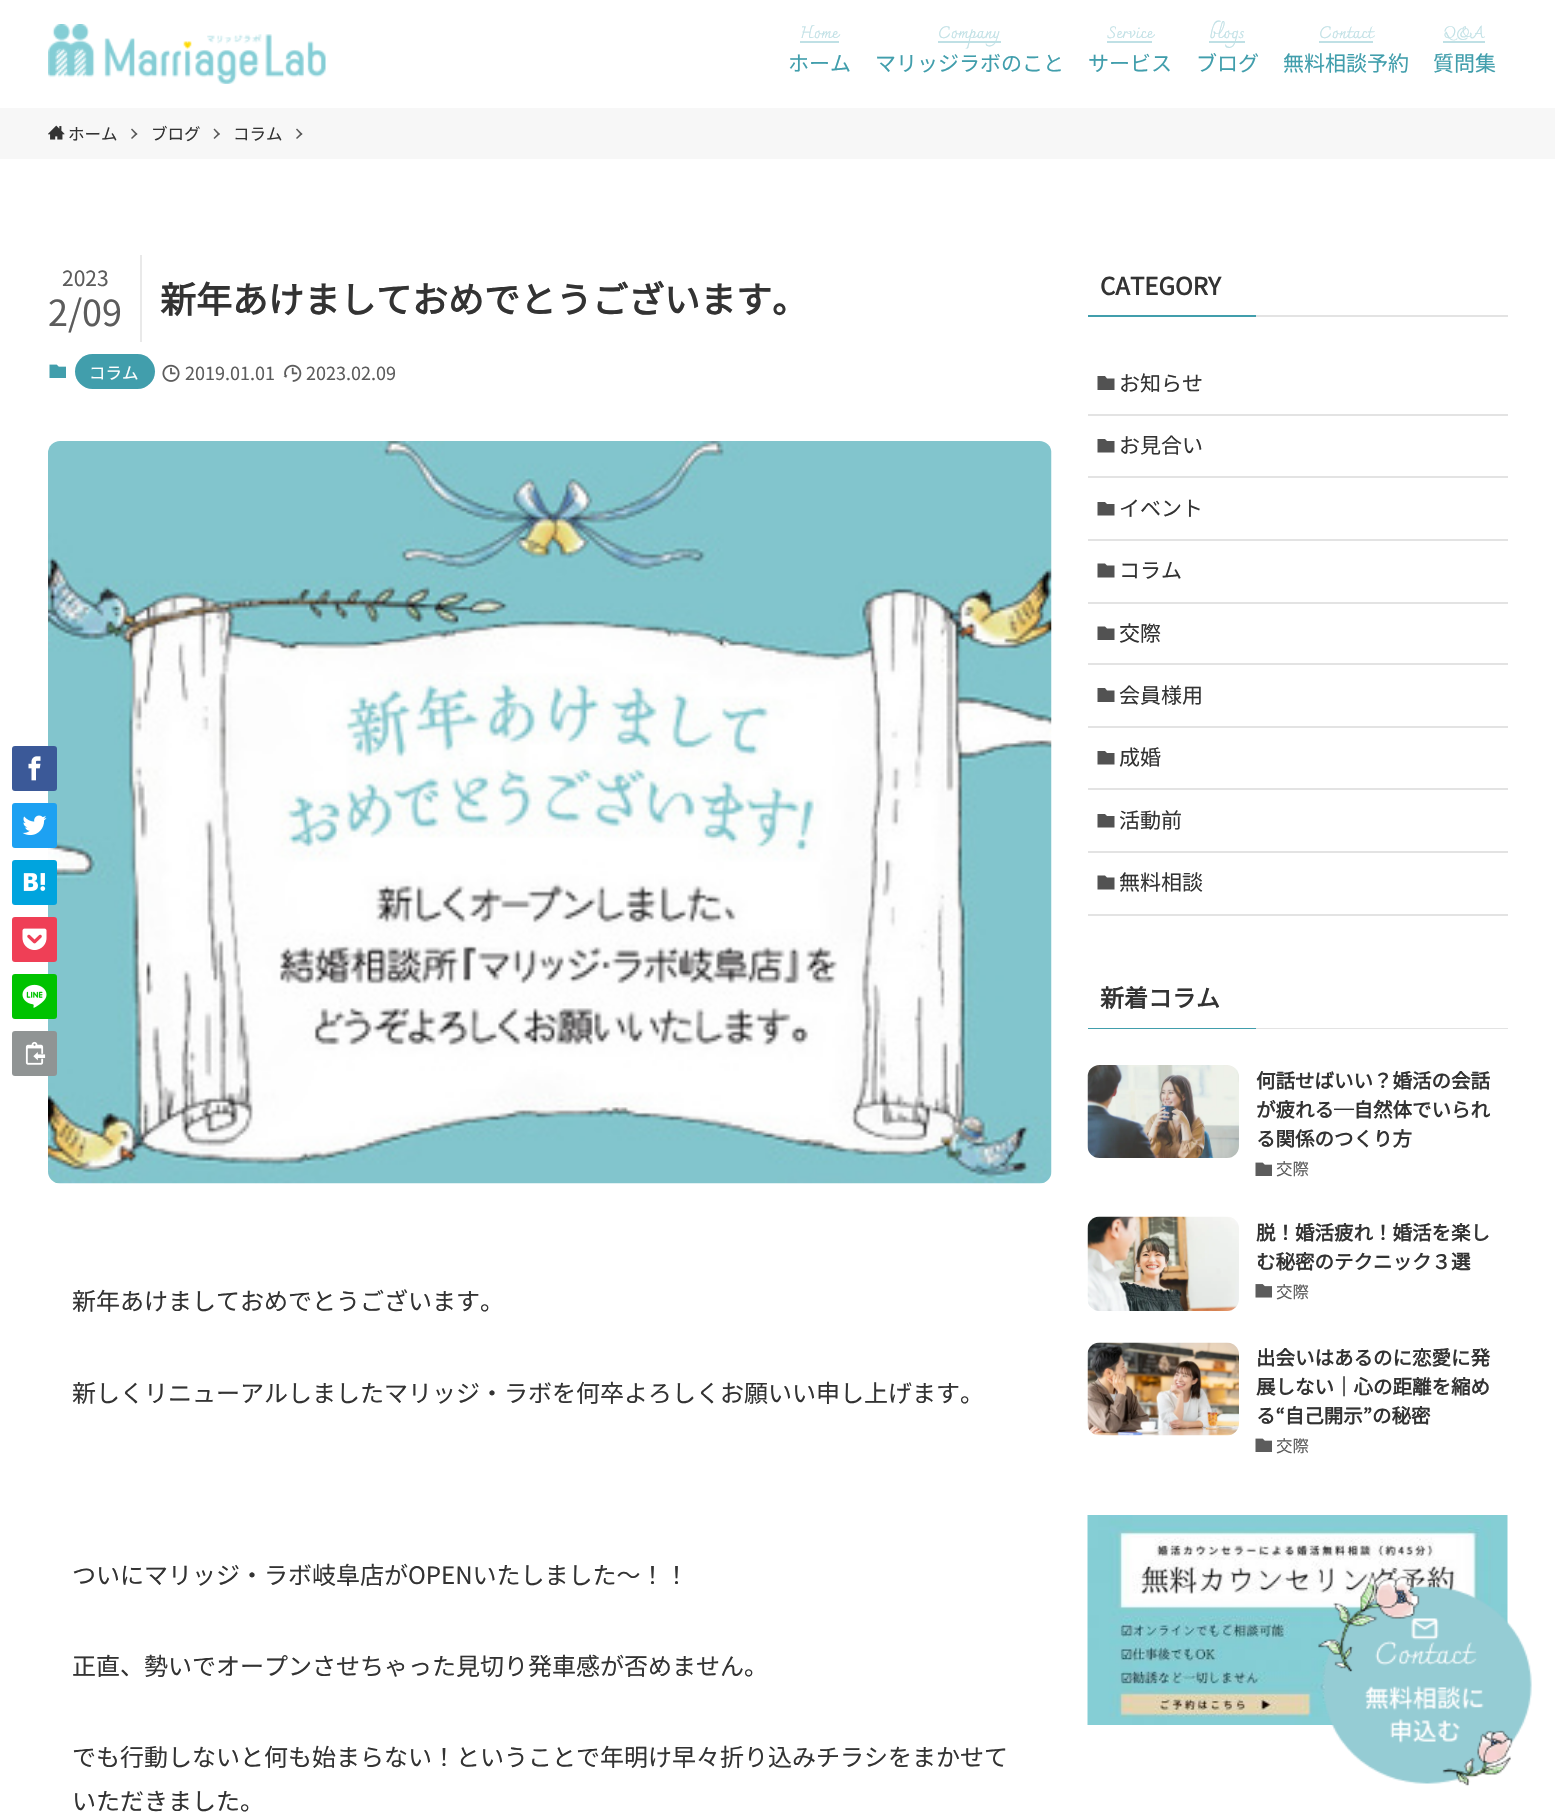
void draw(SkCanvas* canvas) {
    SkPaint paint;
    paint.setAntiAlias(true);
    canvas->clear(0xFFFFFFFF);
    canvas->drawImageRect(SkImages::DeferredFromEncodedData(SkData::MakeFromFileName("img1.png")), SkRect::MakeXYWH(48, 24, 278, 60), SkSamplingOptions());
    SkFont font1(fontMgr->matchFamilyStyle("Charmonman", SkFontStyle::Normal()), 16.5f);
    font1.setSubpixel(true);
    paint.setColor(0xFFBFE0E5);
    canvas->drawString("Home", 800, 38, font1, paint);
    canvas->drawRect(SkRect::MakeXYWH(800, 41, 39, 2), paint);
    SkFont font2(fontMgr->matchFamilyStyle("Noto Sans JP", SkFontStyle(100, SkFontStyle::kNormal_Width, SkFontStyle::kUpright_Slant)), 21);
    font2.setSubpixel(true);
    paint.setColor(0xFF419EAC);
    canvas->drawString("ホーム", 788, 71, font2, paint);
    paint.setColor(0xFFBFE0E5);
    canvas->drawRect(SkRect::MakeXYWH(938, 41, 63, 2), paint);
    canvas->drawString("Company", 938, 38, font1, paint);
    paint.setColor(0xFF419EAC);
    canvas->drawString("マリッジラボのこと", 875, 71, font2, paint);
    paint.setColor(0xFFBFE0E5);
    canvas->drawString("Service", 1107, 38, font1, paint);
    canvas->drawRect(SkRect::MakeXYWH(1107, 41, 45, 2), paint);
    paint.setColor(0xFF419EAC);
    canvas->drawString("サービス", 1088, 71, font2, paint);
    paint.setColor(0xFFBFE0E5);
    canvas->drawRect(SkRect::MakeXYWH(1209, 41, 36, 2), paint);
    canvas->drawString("blogs", 1209, 38, font1, paint);
    paint.setColor(0xFF419EAC);
    canvas->drawString("ブログ", 1196, 71, font2, paint);
    paint.setColor(0xFFBFE0E5);
    canvas->drawString("Contact", 1319, 38, font1, paint);
    canvas->drawRect(SkRect::MakeXYWH(1319, 41, 54, 2), paint);
    paint.setColor(0xFF419EAC);
    canvas->drawString("無料相談予約", 1283, 71, font2, paint);
    paint.setColor(0xFFBFE0E5);
    canvas->drawString("Q&A", 1443, 38, font1, paint);
    canvas->drawRect(SkRect::MakeXYWH(1443, 41, 42, 2), paint);
    paint.setColor(0xFF419EAC);
    canvas->drawString("質問集", 1433, 71, font2, paint);
    paint.setColor(0xFFF7F7F7);
    canvas->drawRect(SkRect::MakeXYWH(0, 108, 1555, 51), paint);
    canvas->drawImageRect(SkImages::DeferredFromEncodedData(SkData::MakeFromFileName("img2.png")), SkRect::MakeXYWH(48, 125, 17, 15), SkSamplingOptions());
    SkFont font3(fontMgr->matchFamilyStyle("Noto Sans JP", SkFontStyle(100, SkFontStyle::kNormal_Width, SkFontStyle::kUpright_Slant)), 16.5f);
    font3.setSubpixel(true);
    paint.setColor(0xFF333333);
    canvas->drawString("ホーム", 68, 140, font3, paint);
    paint.setColor(0xFF5A5A5A);
    canvas->drawPath(SkPathBuilder().moveTo(132, 128.5f).lineTo(137.5f, 134).lineTo(136, 135).lineTo(131, 129.5f).close().detach(), paint);
    canvas->drawPath(SkPathBuilder().moveTo(136, 133).lineTo(137.5f, 134).lineTo(132, 139).lineTo(131, 138).close().detach(), paint);
    paint.setColor(0xFF333333);
    canvas->drawString("ブログ", 151, 140, font3, paint);
    paint.setColor(0xFF5A5A5A);
    canvas->drawPath(SkPathBuilder().moveTo(214.5f, 128.5f).lineTo(220, 134).lineTo(218.5f, 135).lineTo(213.5f, 129.5f).close().detach(), paint);
    canvas->drawPath(SkPathBuilder().moveTo(218.5f, 133).lineTo(220, 134).lineTo(214.5f, 139).lineTo(213.5f, 138).close().detach(), paint);
    paint.setColor(0xFF333333);
    canvas->drawString("コラム", 233, 140, font3, paint);
    paint.setColor(0xFF5A5A5A);
    canvas->drawPath(SkPathBuilder().moveTo(297, 128.5f).lineTo(302.5f, 134).lineTo(301, 135).lineTo(296, 129.5f).close().detach(), paint);
    canvas->drawPath(SkPathBuilder().moveTo(301, 133).lineTo(302.5f, 134).lineTo(297, 139).lineTo(296, 138).close().detach(), paint);
    paint.setColor(0xFFE9E9E9);
    canvas->drawRect(SkRect::MakeXYWH(140, 255, 2, 87), paint);
    paint.setColor(0xFF5C5C5C);
    canvas->drawString("2023", 62, 286, font2, paint);
    SkFont font4(fontMgr->matchFamilyStyle("Noto Sans JP", SkFontStyle(100, SkFontStyle::kNormal_Width, SkFontStyle::kUpright_Slant)), 36);
    font4.setSubpixel(true);
    canvas->drawString("2/09", 48, 326, font4, paint);
    SkFont font5(fontMgr->matchFamilyStyle("Noto Sans JP", SkFontStyle::Bold()), 36);
    font5.setSubpixel(true);
    paint.setColor(0xFF333333);
    canvas->drawString("新年あけましておめでとうございます。", 160, 313, font5, paint);
    canvas->drawImageRect(SkImages::DeferredFromEncodedData(SkData::MakeFromFileName("img3.png")), SkRect::MakeXYWH(49, 364, 17, 14), SkSamplingOptions());
    paint.setColor(0xFF419EAC);
    canvas->drawRoundRect(SkRect::MakeXYWH(75, 354, 80, 35), 17.5f, 17.5f, paint);
    paint.setColor(0xFFFFFFFF);
    canvas->drawString("コラム", 89, 379, font3, paint);
    canvas->drawImageRect(SkImages::DeferredFromEncodedData(SkData::MakeFromFileName("img4.png")), SkRect::MakeXYWH(162, 364, 18, 18), SkSamplingOptions());
    SkFont font6(fontMgr->matchFamilyStyle("Noto Sans JP", SkFontStyle(100, SkFontStyle::kNormal_Width, SkFontStyle::kUpright_Slant)), 18);
    font6.setSubpixel(true);
    paint.setColor(0xFF5C5C5C);
    canvas->drawString("2019.01.01", 185, 380, font6, paint);
    canvas->drawImageRect(SkImages::DeferredFromEncodedData(SkData::MakeFromFileName("img5.png")), SkRect::MakeXYWH(283, 364, 19, 18), SkSamplingOptions());
    canvas->drawString("2023.02.09", 306, 380, font6, paint);
    canvas->drawImageRect(SkImages::DeferredFromEncodedData(SkData::MakeFromFileName("img12.png")), SkRect::MakeXYWH(48, 441, 1004, 743), SkSamplingOptions());
    paint.setColor(0xFF3B5998);
    canvas->drawRoundRect(SkRect::MakeXYWH(12, 746, 45, 45), 3, 3, paint);
    canvas->drawImageRect(SkImages::DeferredFromEncodedData(SkData::MakeFromFileName("img6.png")), SkRect::MakeXYWH(28, 756, 13, 25), SkSamplingOptions());
    paint.setColor(0xFF1DA1F2);
    canvas->drawRoundRect(SkRect::MakeXYWH(12, 803, 45, 45), 3, 3, paint);
    canvas->drawImageRect(SkImages::DeferredFromEncodedData(SkData::MakeFromFileName("img7.png")), SkRect::MakeXYWH(22, 815, 25, 21), SkSamplingOptions());
    paint.setColor(0xFF00A4DE);
    canvas->drawRoundRect(SkRect::MakeXYWH(12, 860, 45, 45), 3, 3, paint);
    canvas->drawImageRect(SkImages::DeferredFromEncodedData(SkData::MakeFromFileName("img8.png")), SkRect::MakeXYWH(23, 873, 23, 18), SkSamplingOptions());
    paint.setColor(0xFFEF3F56);
    canvas->drawRoundRect(SkRect::MakeXYWH(12, 917, 45, 45), 3, 3, paint);
    canvas->drawImageRect(SkImages::DeferredFromEncodedData(SkData::MakeFromFileName("img9.png")), SkRect::MakeXYWH(22, 928, 25, 22), SkSamplingOptions());
    paint.setColor(0xFF00C300);
    canvas->drawRoundRect(SkRect::MakeXYWH(12, 974, 45, 45), 3, 3, paint);
    canvas->drawImageRect(SkImages::DeferredFromEncodedData(SkData::MakeFromFileName("img10.png")), SkRect::MakeXYWH(22, 984, 25, 24), SkSamplingOptions());
    paint.setColor(0xFF909494);
    canvas->drawRoundRect(SkRect::MakeXYWH(12, 1031, 45, 45), 3, 3, paint);
    canvas->drawImageRect(SkImages::DeferredFromEncodedData(SkData::MakeFromFileName("img11.png")), SkRect::MakeXYWH(25, 1041, 21, 24), SkSamplingOptions());
    SkFont font7(fontMgr->matchFamilyStyle("Noto Sans JP", SkFontStyle(100, SkFontStyle::kNormal_Width, SkFontStyle::kUpright_Slant)), 24);
    font7.setSubpixel(true);
    paint.setColor(0xFF333333);
    canvas->drawString("新年あけましておめでとうございます。", 72, 1310, font7, paint);
    canvas->drawString("新しくリニューアルしましたマリッジ・ラボを何卒よろしくお願いい申し上げます。", 72, 1402, font7, paint);
    canvas->drawString("ついにマリッジ・ラボ岐阜店がOPENいたしました～！！", 72, 1584, font7, paint);
    canvas->drawString("正直、勢いでオープンさせちゃった見切り発車感が否めません。", 72, 1675, font7, paint);
    canvas->drawString("でも行動しないと何も始まらない！ということで年明け早々折り込みチラシをまかせて", 72, 1766, font7, paint);
    canvas->drawString("いただきました。", 72, 1810, font7, paint);
    SkFont font8(fontMgr->matchFamilyStyle("Noto Sans JP", SkFontStyle::Bold()), 24);
    font8.setSubpixel(true);
    canvas->drawString("CATEGORY", 1100, 295, font8, paint);
    paint.setColor(0xFF419EAC);
    canvas->drawRect(SkRect::MakeXYWH(1088, 315, 168, 2), paint);
    paint.setColor(0xFFE3E3E3);
    canvas->drawRect(SkRect::MakeXYWH(1256, 315, 252, 2), paint);
    canvas->drawRect(SkRect::MakeXYWH(1088, 414, 420, 2), paint);
    paint.setColor(0xFF525252);
    canvas->drawPath(SkPathBuilder().moveTo(1105, 376).lineTo(1107, 378.5f).lineTo(1114.5f, 378.5f).lineTo(1114.5f, 390).lineTo(1097.5f, 390).lineTo(1097.5f, 376).close().detach(), paint);
    paint.setColor(0xFF333333);
    canvas->drawString("お知らせ", 1119, 391, font2, paint);
    paint.setColor(0xFFE3E3E3);
    canvas->drawRect(SkRect::MakeXYWH(1088, 476, 420, 2), paint);
    paint.setColor(0xFF525252);
    canvas->drawPath(SkPathBuilder().moveTo(1105, 439).lineTo(1107, 441).lineTo(1114.5f, 441).lineTo(1114.5f, 452.5f).lineTo(1097.5f, 452.5f).lineTo(1097.5f, 439).close().detach(), paint);
    paint.setColor(0xFF333333);
    canvas->drawString("お見合い", 1119, 453, font2, paint);
    paint.setColor(0xFFE3E3E3);
    canvas->drawRect(SkRect::MakeXYWH(1088, 539, 420, 2), paint);
    paint.setColor(0xFF525252);
    canvas->drawPath(SkPathBuilder().moveTo(1105, 502).lineTo(1107, 504).lineTo(1114.5f, 504).lineTo(1114.5f, 515.5f).lineTo(1097.5f, 515.5f).lineTo(1097.5f, 502).close().detach(), paint);
    paint.setColor(0xFF333333);
    canvas->drawString("イベント", 1119, 516, font2, paint);
    paint.setColor(0xFFE3E3E3);
    canvas->drawRect(SkRect::MakeXYWH(1088, 602, 420, 2), paint);
    paint.setColor(0xFF525252);
    canvas->drawPath(SkPathBuilder().moveTo(1105, 563.5f).lineTo(1107, 565.5f).lineTo(1114.5f, 565.5f).lineTo(1114.5f, 577.5f).lineTo(1097.5f, 577.5f).lineTo(1097.5f, 563.5f).close().detach(), paint);
    paint.setColor(0xFF333333);
    canvas->drawString("コラム", 1119, 578, font2, paint);
    paint.setColor(0xFFE3E3E3);
    canvas->drawRect(SkRect::MakeXYWH(1088, 663, 420, 2), paint);
    paint.setColor(0xFF525252);
    canvas->drawPath(SkPathBuilder().moveTo(1105, 626.5f).lineTo(1107, 628.5f).lineTo(1114.5f, 628.5f).lineTo(1114.5f, 640).lineTo(1097.5f, 640).lineTo(1097.5f, 626.5f).close().detach(), paint);
    paint.setColor(0xFF333333);
    canvas->drawString("交際", 1119, 641, font2, paint);
    paint.setColor(0xFFE3E3E3);
    canvas->drawRect(SkRect::MakeXYWH(1088, 726, 420, 2), paint);
    paint.setColor(0xFF525252);
    canvas->drawPath(SkPathBuilder().moveTo(1105, 688).lineTo(1107, 690.5f).lineTo(1114.5f, 690.5f).lineTo(1114.5f, 702).lineTo(1097.5f, 702).lineTo(1097.5f, 688).close().detach(), paint);
    paint.setColor(0xFF333333);
    canvas->drawString("会員様用", 1119, 703, font2, paint);
    paint.setColor(0xFFE3E3E3);
    canvas->drawRect(SkRect::MakeXYWH(1088, 788, 420, 2), paint);
    paint.setColor(0xFF525252);
    canvas->drawPath(SkPathBuilder().moveTo(1105, 751).lineTo(1107, 753).lineTo(1114.5f, 753).lineTo(1114.5f, 764.5f).lineTo(1097.5f, 764.5f).lineTo(1097.5f, 751).close().detach(), paint);
    paint.setColor(0xFF333333);
    canvas->drawString("成婚", 1119, 765, font2, paint);
    paint.setColor(0xFFE3E3E3);
    canvas->drawRect(SkRect::MakeXYWH(1088, 851, 420, 2), paint);
    paint.setColor(0xFF525252);
    canvas->drawPath(SkPathBuilder().moveTo(1105, 814).lineTo(1107, 816).lineTo(1114.5f, 816).lineTo(1114.5f, 827.5f).lineTo(1097.5f, 827.5f).lineTo(1097.5f, 814).close().detach(), paint);
    paint.setColor(0xFF333333);
    canvas->drawString("活動前", 1119, 828, font2, paint);
    paint.setColor(0xFFE3E3E3);
    canvas->drawRect(SkRect::MakeXYWH(1088, 914, 420, 2), paint);
    paint.setColor(0xFF525252);
    canvas->drawPath(SkPathBuilder().moveTo(1105, 875.5f).lineTo(1107, 877.5f).lineTo(1114.5f, 877.5f).lineTo(1114.5f, 889.5f).lineTo(1097.5f, 889.5f).lineTo(1097.5f, 875.5f).close().detach(), paint);
    paint.setColor(0xFF333333);
    canvas->drawString("無料相談", 1119, 890, font2, paint);
    canvas->drawString("新着コラム", 1100, 1007, font8, paint);
    paint.setColor(0xFF419EAC);
    canvas->drawRect(SkRect::MakeXYWH(1088, 1028, 168, 1), paint);
    paint.setColor(0xFFE3E3E3);
    canvas->drawRect(SkRect::MakeXYWH(1256, 1028, 252, 1), paint);
    canvas->drawImageRect(SkImages::DeferredFromEncodedData(SkData::MakeFromFileName("img13.png")), SkRect::MakeXYWH(1087, 1065, 152, 93), SkSamplingOptions());
    SkFont font9(fontMgr->matchFamilyStyle("Noto Sans JP", SkFontStyle::Bold()), 19.5f);
    font9.setSubpixel(true);
    paint.setColor(0xFF333333);
    canvas->drawString("何話せばいい？婚活の会話", 1256, 1088, font9, paint);
    canvas->drawString("が疲れる─自然体でいられ", 1256, 1117, font9, paint);
    canvas->drawString("る関係のつくり方", 1256, 1146, font9, paint);
    canvas->drawImageRect(SkImages::DeferredFromEncodedData(SkData::MakeFromFileName("img14.png")), SkRect::MakeXYWH(1255, 1162, 17, 14), SkSamplingOptions());
    paint.setColor(0xFF5C5C5C);
    canvas->drawString("交際", 1276, 1175, font3, paint);
    canvas->drawImageRect(SkImages::DeferredFromEncodedData(SkData::MakeFromFileName("img15.png")), SkRect::MakeXYWH(1087, 1216, 152, 95), SkSamplingOptions());
    paint.setColor(0xFF333333);
    canvas->drawString("脱！婚活疲れ！婚活を楽し", 1256, 1240, font9, paint);
    canvas->drawString("む秘密のテクニック３選", 1256, 1269, font9, paint);
    canvas->drawImageRect(SkImages::DeferredFromEncodedData(SkData::MakeFromFileName("img16.png")), SkRect::MakeXYWH(1255, 1284, 17, 14), SkSamplingOptions());
    paint.setColor(0xFF5C5C5C);
    canvas->drawString("交際", 1276, 1298, font3, paint);
    canvas->drawImageRect(SkImages::DeferredFromEncodedData(SkData::MakeFromFileName("img17.png")), SkRect::MakeXYWH(1087, 1342, 152, 94), SkSamplingOptions());
    paint.setColor(0xFF333333);
    canvas->drawString("出会いはあるのに恋愛に発", 1256, 1365, font9, paint);
    canvas->drawString("展しない｜心の距離を縮め", 1256, 1394, font9, paint);
    canvas->drawString("る“自己開示”の秘密", 1256, 1423, font9, paint);
    canvas->drawImageRect(SkImages::DeferredFromEncodedData(SkData::MakeFromFileName("img14.png")), SkRect::MakeXYWH(1255, 1438, 17, 14), SkSamplingOptions());
    paint.setColor(0xFF5C5C5C);
    canvas->drawString("交際", 1276, 1452, font3, paint);
    canvas->drawImageRect(SkImages::DeferredFromEncodedData(SkData::MakeFromFileName("img18.png")), SkRect::MakeXYWH(1087, 1515, 421, 210), SkSamplingOptions());
    canvas->drawImageRect(SkImages::DeferredFromEncodedData(SkData::MakeFromFileName("img19.png")), SkRect::MakeXYWH(1318, 1572, 214, 214), SkSamplingOptions());
}
